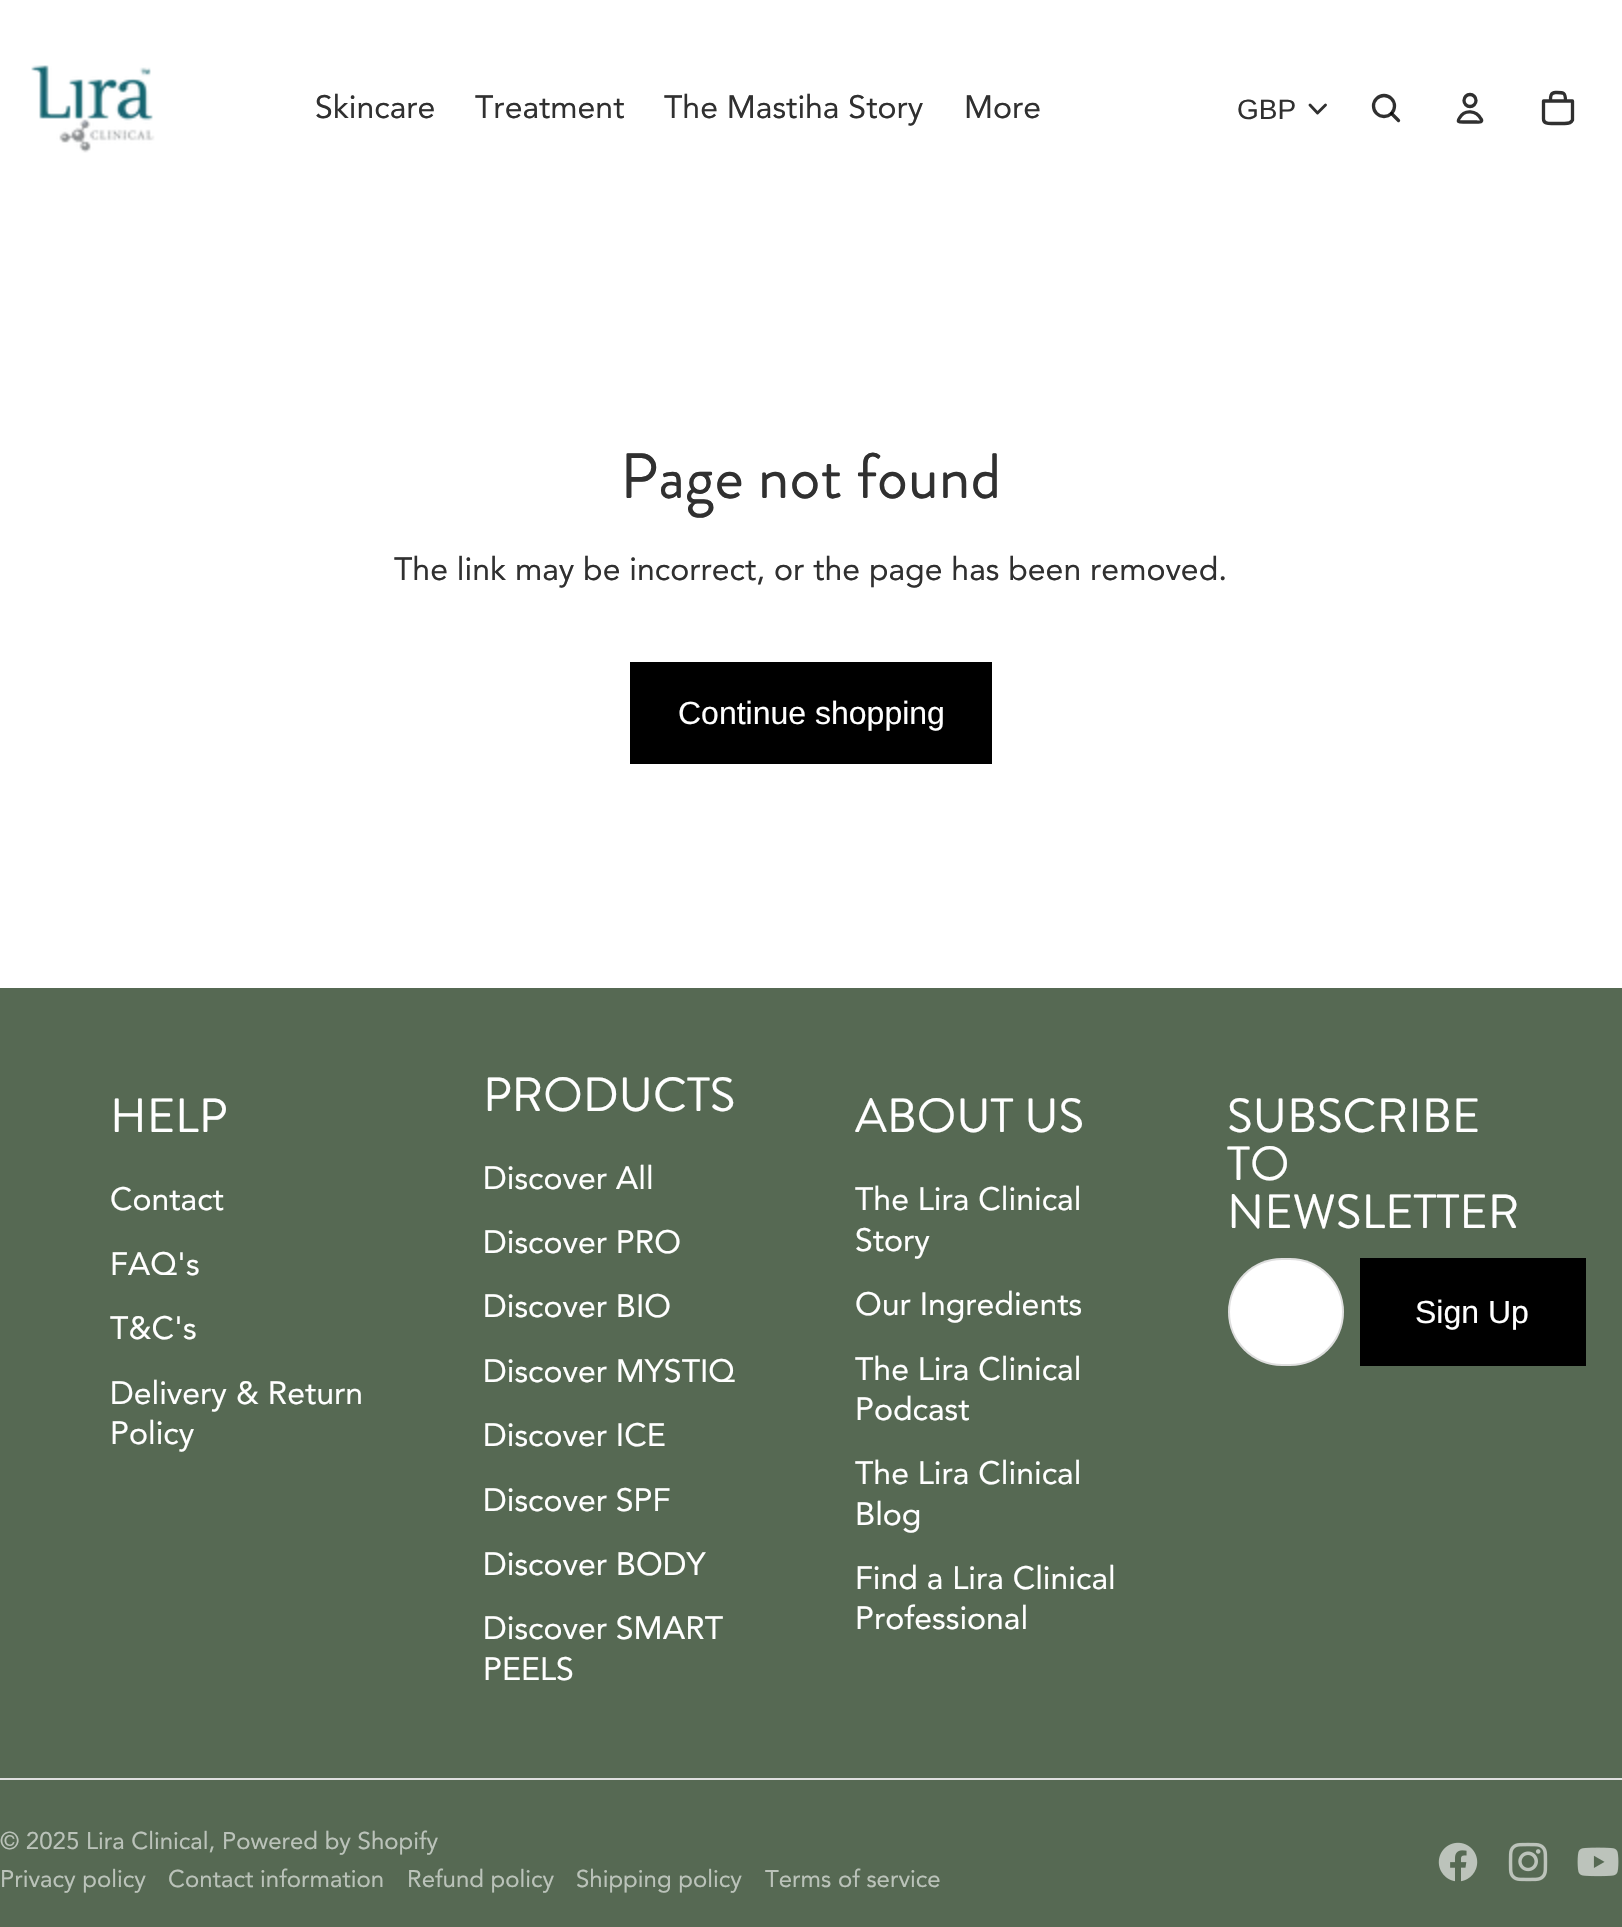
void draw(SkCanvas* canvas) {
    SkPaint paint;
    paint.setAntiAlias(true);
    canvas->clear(0xFFFFFFFF);
    canvas->drawImageRect(SkImages::DeferredFromEncodedData(SkData::MakeFromFileName("img1.png")), SkRect::MakeXYWH(31, 65, 124, 88), SkSamplingOptions());
    SkFont font1(fontMgr->matchFamilyStyle("Avenir", SkFontStyle::Normal()), 32);
    font1.setSubpixel(true);
    paint.setColor(0xFF303030);
    canvas->drawString("Skincare", 315, 118, font1, paint);
    canvas->drawString("Treatment", 475, 118, font1, paint);
    canvas->drawString("The Mastiha Story", 664, 118, font1, paint);
    canvas->drawString("More", 964, 118, font1, paint);
    SkFont font2(fontMgr->matchFamilyStyle("Liberation Sans", SkFontStyle::Normal()), 28);
    font2.setSubpixel(true);
    canvas->drawString("GBP", 1237, 119, font2, paint);
    paint.setStyle(SkPaint::kStroke_Style);
    paint.setStrokeWidth(2.9f);
    paint.setStrokeCap(SkPaint::kRound_Cap);
    paint.setStrokeJoin(SkPaint::kRound_Join);
    canvas->drawPath(SkPathBuilder().moveTo(1325.5f, 105).lineTo(1317.5f, 113).lineTo(1310, 105).detach(), paint);
    paint.setStrokeWidth(3.3f);
    paint.setStrokeCap(SkPaint::kButt_Cap);
    paint.setStrokeJoin(SkPaint::kMiter_Join);
    canvas->drawCircle(1384, 106, 10.5f, paint);
    paint.setStrokeCap(SkPaint::kRound_Cap);
    paint.setStrokeJoin(SkPaint::kRound_Join);
    paint.setColor(0xCF000000);
    canvas->drawPath(SkPathBuilder().moveTo(1391.5f, 113.5f).lineTo(1398.5f, 120.5f).detach(), paint);
    paint.setStrokeCap(SkPaint::kButt_Cap);
    paint.setStrokeJoin(SkPaint::kMiter_Join);
    paint.setColor(0xFF303030);
    canvas->drawCircle(1470, 100.5f, 6, paint);
    paint.setStrokeCap(SkPaint::kRound_Cap);
    paint.setStrokeJoin(SkPaint::kRound_Join);
    canvas->drawPath(SkPathBuilder().moveTo(1459.5f, 118).cubicTo(1457, 122, 1458.5f, 122, 1463, 122).lineTo(1477, 122).cubicTo(1477.5f, 122, 1481, 122.5f, 1481.5f, 121).cubicTo(1482, 120.5f, 1481.5f, 119.5f, 1481, 119).cubicTo(1476.5f, 110.5f, 1464.5f, 109, 1459.5f, 118).detach(), paint);
    canvas->drawPath(SkPathBuilder().moveTo(1543.5f, 101).lineTo(1572.5f, 101).lineTo(1572.5f, 120).cubicTo(1571, 123.5f, 1567.5f, 123.5f, 1564.5f, 123.5f).lineTo(1551.5f, 123.5f).cubicTo(1548, 123.5f, 1543.5f, 123.5f, 1543.5f, 119).close().moveTo(1555.5f, 92.5f).cubicTo(1563.5f, 92.5f, 1565.5f, 92, 1565.5f, 101).lineTo(1550.5f, 101).cubicTo(1550.5f, 97.5f, 1550, 92.5f, 1555.5f, 92.5f).detach(), paint);
    SkFont font3(fontMgr->matchFamilyStyle("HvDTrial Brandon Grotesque", SkFontStyle::Normal()), 64);
    font3.setSubpixel(true);
    paint.setStyle(SkPaint::kFill_Style);
    canvas->drawString("Page not found", 620, 498, font3, paint);
    canvas->drawString("The link may be incorrect, or the page has been removed.", 394, 580, font1, paint);
    paint.setColor(0xFF000000);
    canvas->drawRect(SkRect::MakeXYWH(630, 662, 362, 102), paint);
    SkFont font4(fontMgr->matchFamilyStyle("Liberation Sans", SkFontStyle::Normal()), 32);
    font4.setSubpixel(true);
    paint.setColor(0xFFFFFFFF);
    canvas->drawString("Continue shopping", 678, 724, font4, paint);
    paint.setColor(0xFF566953);
    canvas->drawRect(SkRect::MakeXYWH(0, 988, 1622, 939), paint);
    SkFont font5(fontMgr->matchFamilyStyle("HvDTrial Brandon Grotesque", SkFontStyle::Normal()), 48);
    font5.setSubpixel(true);
    paint.setColor(0xFFFFFFFF);
    canvas->drawString("HELP", 110, 1132, font5, paint);
    canvas->drawString("Contact", 110, 1210, font1, paint);
    canvas->drawString("FAQ's", 110, 1275, font1, paint);
    canvas->drawString("T&C's", 110, 1339, font1, paint);
    canvas->drawString("Delivery & Return", 110, 1404, font1, paint);
    canvas->drawString("Policy", 110, 1444, font1, paint);
    canvas->drawString("PRODUCTS", 483, 1111, font5, paint);
    canvas->drawString("Discover All", 483, 1189, font1, paint);
    canvas->drawString("Discover PRO", 483, 1253, font1, paint);
    canvas->drawString("Discover BIO", 483, 1317, font1, paint);
    canvas->drawString("Discover MYSTIQ", 483, 1382, font1, paint);
    canvas->drawString("Discover ICE", 483, 1446, font1, paint);
    canvas->drawString("Discover SPF", 483, 1511, font1, paint);
    canvas->drawString("Discover BODY", 483, 1575, font1, paint);
    canvas->drawString("Discover SMART", 483, 1639, font1, paint);
    canvas->drawString("PEELS", 483, 1680, font1, paint);
    canvas->drawString("ABOUT US", 855, 1132, font5, paint);
    canvas->drawString("The Lira Clinical", 855, 1210, font1, paint);
    canvas->drawString("Story", 855, 1251, font1, paint);
    canvas->drawString("Our Ingredients", 855, 1315, font1, paint);
    canvas->drawString("The Lira Clinical", 855, 1380, font1, paint);
    canvas->drawString("Podcast", 855, 1420, font1, paint);
    canvas->drawString("The Lira Clinical", 855, 1484, font1, paint);
    canvas->drawString("Blog", 855, 1525, font1, paint);
    canvas->drawString("Find a Lira Clinical", 855, 1589, font1, paint);
    canvas->drawString("Professional", 855, 1629, font1, paint);
    canvas->drawString("SUBSCRIBE", 1227, 1132, font5, paint);
    canvas->drawString("TO", 1227, 1180, font5, paint);
    canvas->drawString("NEWSLETTER", 1227, 1228, font5, paint);
    canvas->drawRoundRect(SkRect::MakeXYWH(1228, 1258, 116, 108), 54, 54, paint);
    paint.setStyle(SkPaint::kStroke_Style);
    paint.setStrokeWidth(2);
    paint.setStrokeCap(SkPaint::kButt_Cap);
    paint.setStrokeJoin(SkPaint::kMiter_Join);
    paint.setColor(0x21000000);
    canvas->drawRoundRect(SkRect::MakeXYWH(1229, 1259, 114, 106), 53, 53, paint);
    paint.setStyle(SkPaint::kFill_Style);
    paint.setColor(0xFF000000);
    canvas->drawRect(SkRect::MakeXYWH(1360, 1258, 226, 108), paint);
    paint.setColor(0xFFFFFFFF);
    canvas->drawString("Sign Up", 1415, 1323, font4, paint);
    paint.setColor(0xFFDFDFDF);
    canvas->drawRect(SkRect::MakeXYWH(0, 1778, 1622, 2), paint);
    SkFont font6(fontMgr->matchFamilyStyle("Avenir", SkFontStyle::Normal()), 24);
    font6.setSubpixel(true);
    paint.setColor(0xFFBBC3BA);
    canvas->drawString("© 2025 Lira Clinical, Powered by Shopify", 0, 1849, font6, paint);
    canvas->drawString("Privacy policy", 0, 1887, font6, paint);
    canvas->drawString("Contact information", 168, 1887, font6, paint);
    canvas->drawString("Refund policy", 407, 1887, font6, paint);
    canvas->drawString("Shipping policy", 576, 1887, font6, paint);
    canvas->drawString("Terms of service", 765, 1887, font6, paint);
    canvas->drawImageRect(SkImages::DeferredFromEncodedData(SkData::MakeFromFileName("img2.png")), SkRect::MakeXYWH(1438, 1842, 40, 40), SkSamplingOptions());
    canvas->drawImageRect(SkImages::DeferredFromEncodedData(SkData::MakeFromFileName("img3.png")), SkRect::MakeXYWH(1508, 1842, 40, 40), SkSamplingOptions());
    canvas->drawImageRect(SkImages::DeferredFromEncodedData(SkData::MakeFromFileName("img4.png")), SkRect::MakeXYWH(1577, 1847, 42, 30), SkSamplingOptions());
}
